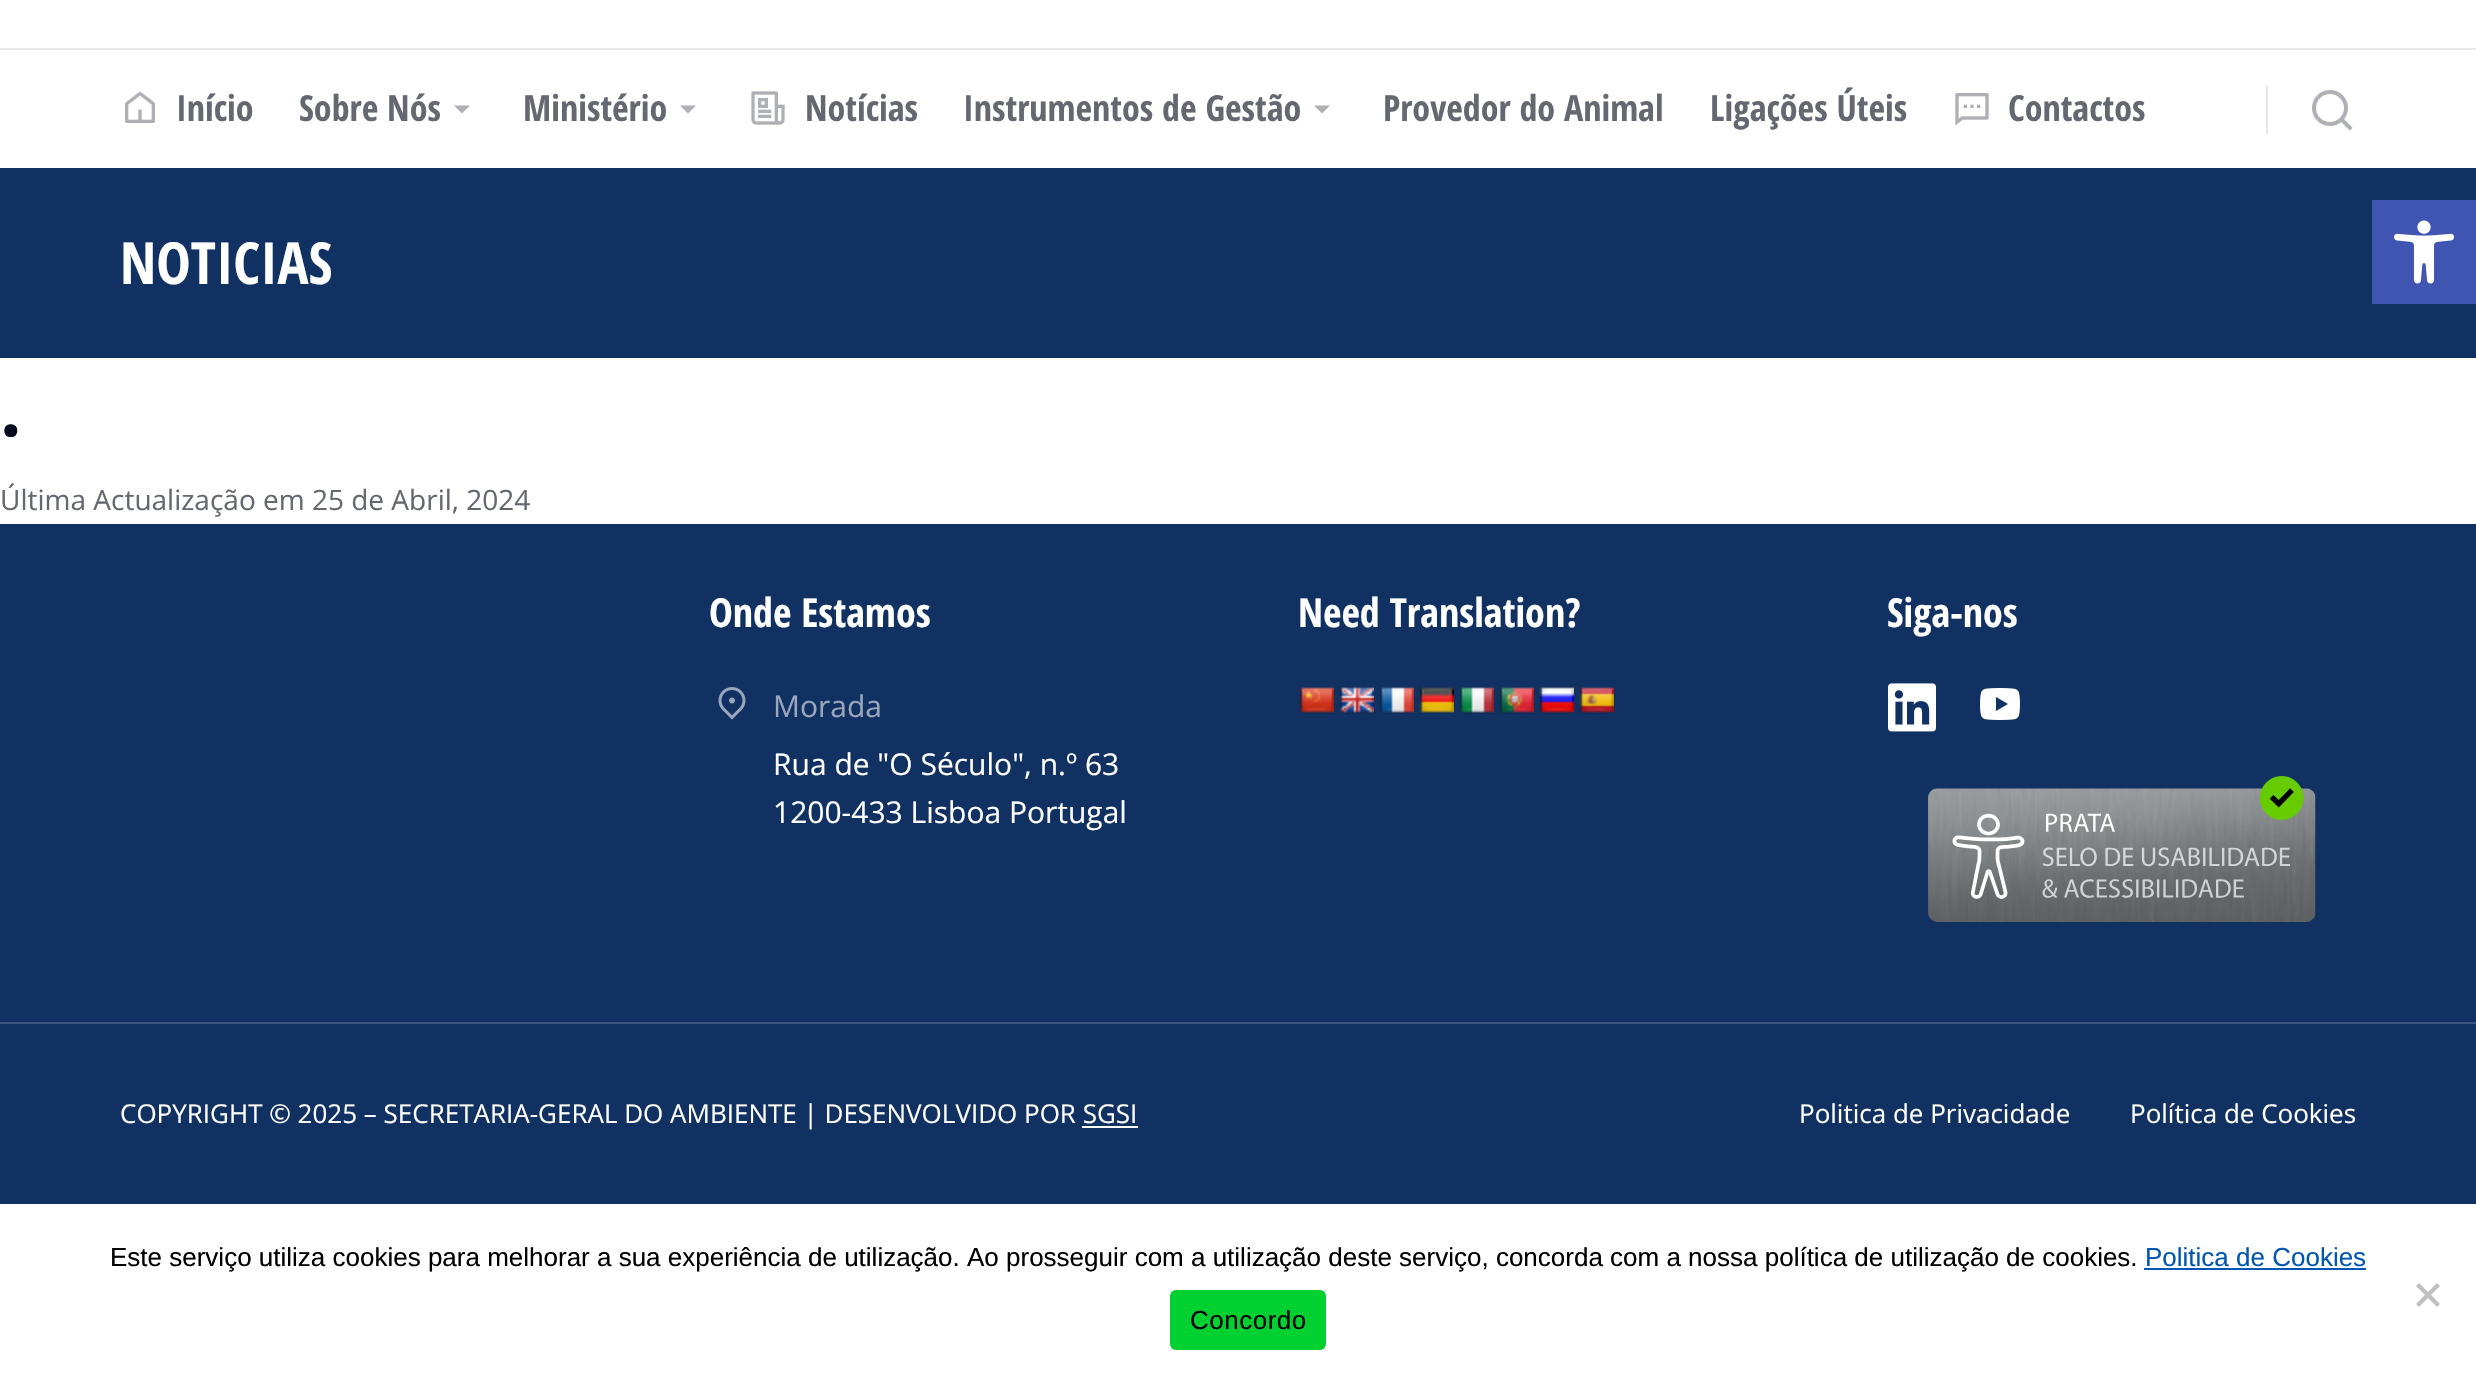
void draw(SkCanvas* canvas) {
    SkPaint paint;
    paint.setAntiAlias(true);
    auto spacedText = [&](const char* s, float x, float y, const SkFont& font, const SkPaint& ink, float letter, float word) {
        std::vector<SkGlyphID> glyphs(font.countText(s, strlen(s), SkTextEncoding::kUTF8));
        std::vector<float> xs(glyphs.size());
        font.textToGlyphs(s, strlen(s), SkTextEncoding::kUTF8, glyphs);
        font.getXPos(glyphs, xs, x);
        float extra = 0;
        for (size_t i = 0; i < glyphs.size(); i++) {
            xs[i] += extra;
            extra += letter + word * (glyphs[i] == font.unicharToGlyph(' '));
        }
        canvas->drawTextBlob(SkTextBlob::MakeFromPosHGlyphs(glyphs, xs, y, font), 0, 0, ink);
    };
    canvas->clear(0xFFFFFFFF);
    paint.setColor(0xFFE6E7E8);
    canvas->drawRect(SkRect::MakeXYWH(0, 48, 2476, 2), paint);
    canvas->drawImageRect(SkImages::DeferredFromEncodedData(SkData::MakeFromFileName("img1.png")), SkRect::MakeXYWH(125, 91, 30, 32), SkSamplingOptions());
    SkFont font1(fontMgr->matchFamilyStyle("Open Sans Condensed", SkFontStyle::Bold()), 36);
    font1.setSubpixel(true);
    paint.setColor(0xFF656871);
    canvas->drawString("Início", 176, 121, font1, paint);
    canvas->drawString("Sobre Nós", 299, 121, font1, paint);
    paint.setColor(0xFFAFB0B5);
    canvas->drawPath(SkPathBuilder().moveTo(462, 113.5f).lineTo(454, 105.5f).lineTo(470, 105.5f).close().detach(), paint);
    paint.setColor(0xFF656871);
    canvas->drawString("Ministério", 523, 121, font1, paint);
    paint.setColor(0xFFAFB0B5);
    canvas->drawPath(SkPathBuilder().moveTo(688, 113.5f).lineTo(680, 105.5f).lineTo(696, 105.5f).close().detach(), paint);
    canvas->drawImageRect(SkImages::DeferredFromEncodedData(SkData::MakeFromFileName("img2.png")), SkRect::MakeXYWH(751, 91, 34, 34), SkSamplingOptions());
    paint.setColor(0xFF656871);
    canvas->drawString("Notícias", 805, 121, font1, paint);
    canvas->drawString("Instrumentos de Gestão", 963, 121, font1, paint);
    paint.setColor(0xFFAFB0B5);
    canvas->drawPath(SkPathBuilder().moveTo(1322, 113.5f).lineTo(1314, 105.5f).lineTo(1330, 105.5f).close().detach(), paint);
    paint.setColor(0xFF656871);
    canvas->drawString("Provedor do Animal", 1383, 121, font1, paint);
    canvas->drawString("Ligações Úteis", 1710, 121, font1, paint);
    canvas->drawImageRect(SkImages::DeferredFromEncodedData(SkData::MakeFromFileName("img3.png")), SkRect::MakeXYWH(1955, 93, 34, 33), SkSamplingOptions());
    canvas->drawString("Contactos", 2008, 121, font1, paint);
    paint.setColor(0xFFE6E7E8);
    canvas->drawRect(SkRect::MakeXYWH(2266, 86, 2, 48), paint);
    canvas->drawImageRect(SkImages::DeferredFromEncodedData(SkData::MakeFromFileName("img4.png")), SkRect::MakeXYWH(2312, 90, 41, 41), SkSamplingOptions());
    paint.setColor(0xFF113163);
    canvas->drawRect(SkRect::MakeXYWH(0, 168, 2476, 190), paint);
    SkFont font2(fontMgr->matchFamilyStyle("Open Sans Condensed", SkFontStyle::Bold()), 58);
    font2.setSubpixel(true);
    paint.setColor(0xFFFFFFFF);
    canvas->drawString("NOTICIAS", 120, 284, font2, paint);
    SkFont font3(fontMgr->matchFamilyStyle("Open Sans Condensed", SkFontStyle::Bold()), 80);
    font3.setSubpixel(true);
    paint.setColor(0xFF040A19);
    canvas->drawString(".", 0, 436, font3, paint);
    SkFont font4(fontMgr->matchFamilyStyle("Open Sans", SkFontStyle::Normal()), 28);
    font4.setSubpixel(true);
    paint.setColor(0xFF656871);
    canvas->drawString("Última Actualização em 25 de Abril, 2024", 0, 510, font4, paint);
    paint.setColor(0xFF113163);
    canvas->drawRect(SkRect::MakeXYWH(0, 524, 2476, 680), paint);
    SkFont font5(fontMgr->matchFamilyStyle("Open Sans Condensed", SkFontStyle::Bold()), 40);
    font5.setSubpixel(true);
    paint.setColor(0xFFFFFFFF);
    canvas->drawString("Onde Estamos", 709, 627, font5, paint);
    canvas->drawImageRect(SkImages::DeferredFromEncodedData(SkData::MakeFromFileName("img5.png")), SkRect::MakeXYWH(718, 687, 28, 33), SkSamplingOptions());
    SkFont font6(fontMgr->matchFamilyStyle("Open Sans", SkFontStyle::Normal()), 30);
    font6.setSubpixel(true);
    paint.setColor(0xFF99A6BC);
    canvas->drawString("Morada", 773, 717, font6, paint);
    paint.setColor(0xFFFFFFFF);
    canvas->drawString("Rua de \"O Século\", n.º 63", 773, 775, font6, paint);
    canvas->drawString("1200-433 Lisboa Portugal", 773, 823, font6, paint);
    canvas->drawString("Need Translation?", 1298, 627, font5, paint);
    canvas->drawImageRect(SkImages::DeferredFromEncodedData(SkData::MakeFromFileName("img6.png")), SkRect::MakeXYWH(1299, 687, 35, 27), SkSamplingOptions());
    canvas->drawImageRect(SkImages::DeferredFromEncodedData(SkData::MakeFromFileName("img7.png")), SkRect::MakeXYWH(1339, 687, 35, 27), SkSamplingOptions());
    canvas->drawImageRect(SkImages::DeferredFromEncodedData(SkData::MakeFromFileName("img8.png")), SkRect::MakeXYWH(1379, 687, 35, 27), SkSamplingOptions());
    canvas->drawImageRect(SkImages::DeferredFromEncodedData(SkData::MakeFromFileName("img9.png")), SkRect::MakeXYWH(1419, 687, 35, 27), SkSamplingOptions());
    canvas->drawImageRect(SkImages::DeferredFromEncodedData(SkData::MakeFromFileName("img10.png")), SkRect::MakeXYWH(1459, 687, 35, 27), SkSamplingOptions());
    canvas->drawImageRect(SkImages::DeferredFromEncodedData(SkData::MakeFromFileName("img11.png")), SkRect::MakeXYWH(1499, 687, 35, 27), SkSamplingOptions());
    canvas->drawImageRect(SkImages::DeferredFromEncodedData(SkData::MakeFromFileName("img12.png")), SkRect::MakeXYWH(1539, 687, 35, 27), SkSamplingOptions());
    canvas->drawImageRect(SkImages::DeferredFromEncodedData(SkData::MakeFromFileName("img13.png")), SkRect::MakeXYWH(1579, 687, 35, 27), SkSamplingOptions());
    canvas->drawString("Siga-nos", 1887, 627, font5, paint);
    canvas->drawImageRect(SkImages::DeferredFromEncodedData(SkData::MakeFromFileName("img14.png")), SkRect::MakeXYWH(1888, 683, 48, 49), SkSamplingOptions());
    canvas->drawImageRect(SkImages::DeferredFromEncodedData(SkData::MakeFromFileName("img15.png")), SkRect::MakeXYWH(1980, 688, 40, 32), SkSamplingOptions());
    canvas->drawImageRect(SkImages::DeferredFromEncodedData(SkData::MakeFromFileName("img16.png")), SkRect::MakeXYWH(1928, 776, 388, 146), SkSamplingOptions());
    paint.setColor(0xFF39547E);
    canvas->drawRect(SkRect::MakeXYWH(0, 1022, 2476, 2), paint);
    SkFont font7(fontMgr->matchFamilyStyle("Open Sans", SkFontStyle::Normal()), 26);
    font7.setSubpixel(true);
    paint.setColor(0xFFFFFFFF);
    canvas->drawString("COPYRIGHT © 2025 – SECRETARIA-GERAL DO AMBIENTE | DESENVOLVIDO POR SGSI", 120, 1123, font7, paint);
    canvas->drawRect(SkRect::MakeXYWH(1082, 1126, 56, 2), paint);
    canvas->drawString("Politica de Privacidade", 1799, 1123, font7, paint);
    canvas->drawString("Política de Cookies", 2130, 1123, font7, paint);
    paint.setColor(0xFF4054B2);
    canvas->drawRect(SkRect::MakeXYWH(2372, 200, 104, 104), paint);
    canvas->drawImageRect(SkImages::DeferredFromEncodedData(SkData::MakeFromFileName("img17.png")), SkRect::MakeXYWH(2394, 220, 61, 64), SkSamplingOptions());
    SkFont font8(fontMgr->matchFamilyStyle("Liberation Sans", SkFontStyle::Normal()), 26);
    font8.setSubpixel(true);
    paint.setColor(0xFF000000);
    canvas->drawString("Este serviço utiliza cookies para melhorar a sua experiência de utilização. Ao prosseguir com a utilização deste serviço, concorda com a nossa política de utilização de cookies.", 110, 1266, font8, paint);
    paint.setColor(0xFF0056B3);
    canvas->drawString("Politica de Cookies", 2145, 1266, font8, paint);
    canvas->drawRect(SkRect::MakeXYWH(2144, 1268, 222, 2), paint);
    paint.setColor(0xFFC0C0C0);
    canvas->drawPath(SkPathBuilder().moveTo(2437, 1283).lineTo(2440, 1286).lineTo(2419, 1307).lineTo(2416, 1304).close().detach(), paint);
    canvas->drawPath(SkPathBuilder().moveTo(2416, 1286).lineTo(2419, 1283).lineTo(2440, 1304).lineTo(2437, 1307).close().detach(), paint);
    paint.setColor(0xFF00D130);
    canvas->drawRoundRect(SkRect::MakeXYWH(1170, 1290, 156, 60), 6, 6, paint);
    paint.setColor(0xFF000000);
    spacedText("Concordo", 1190, 1329, font8, paint, 0.5f, 0);
}
